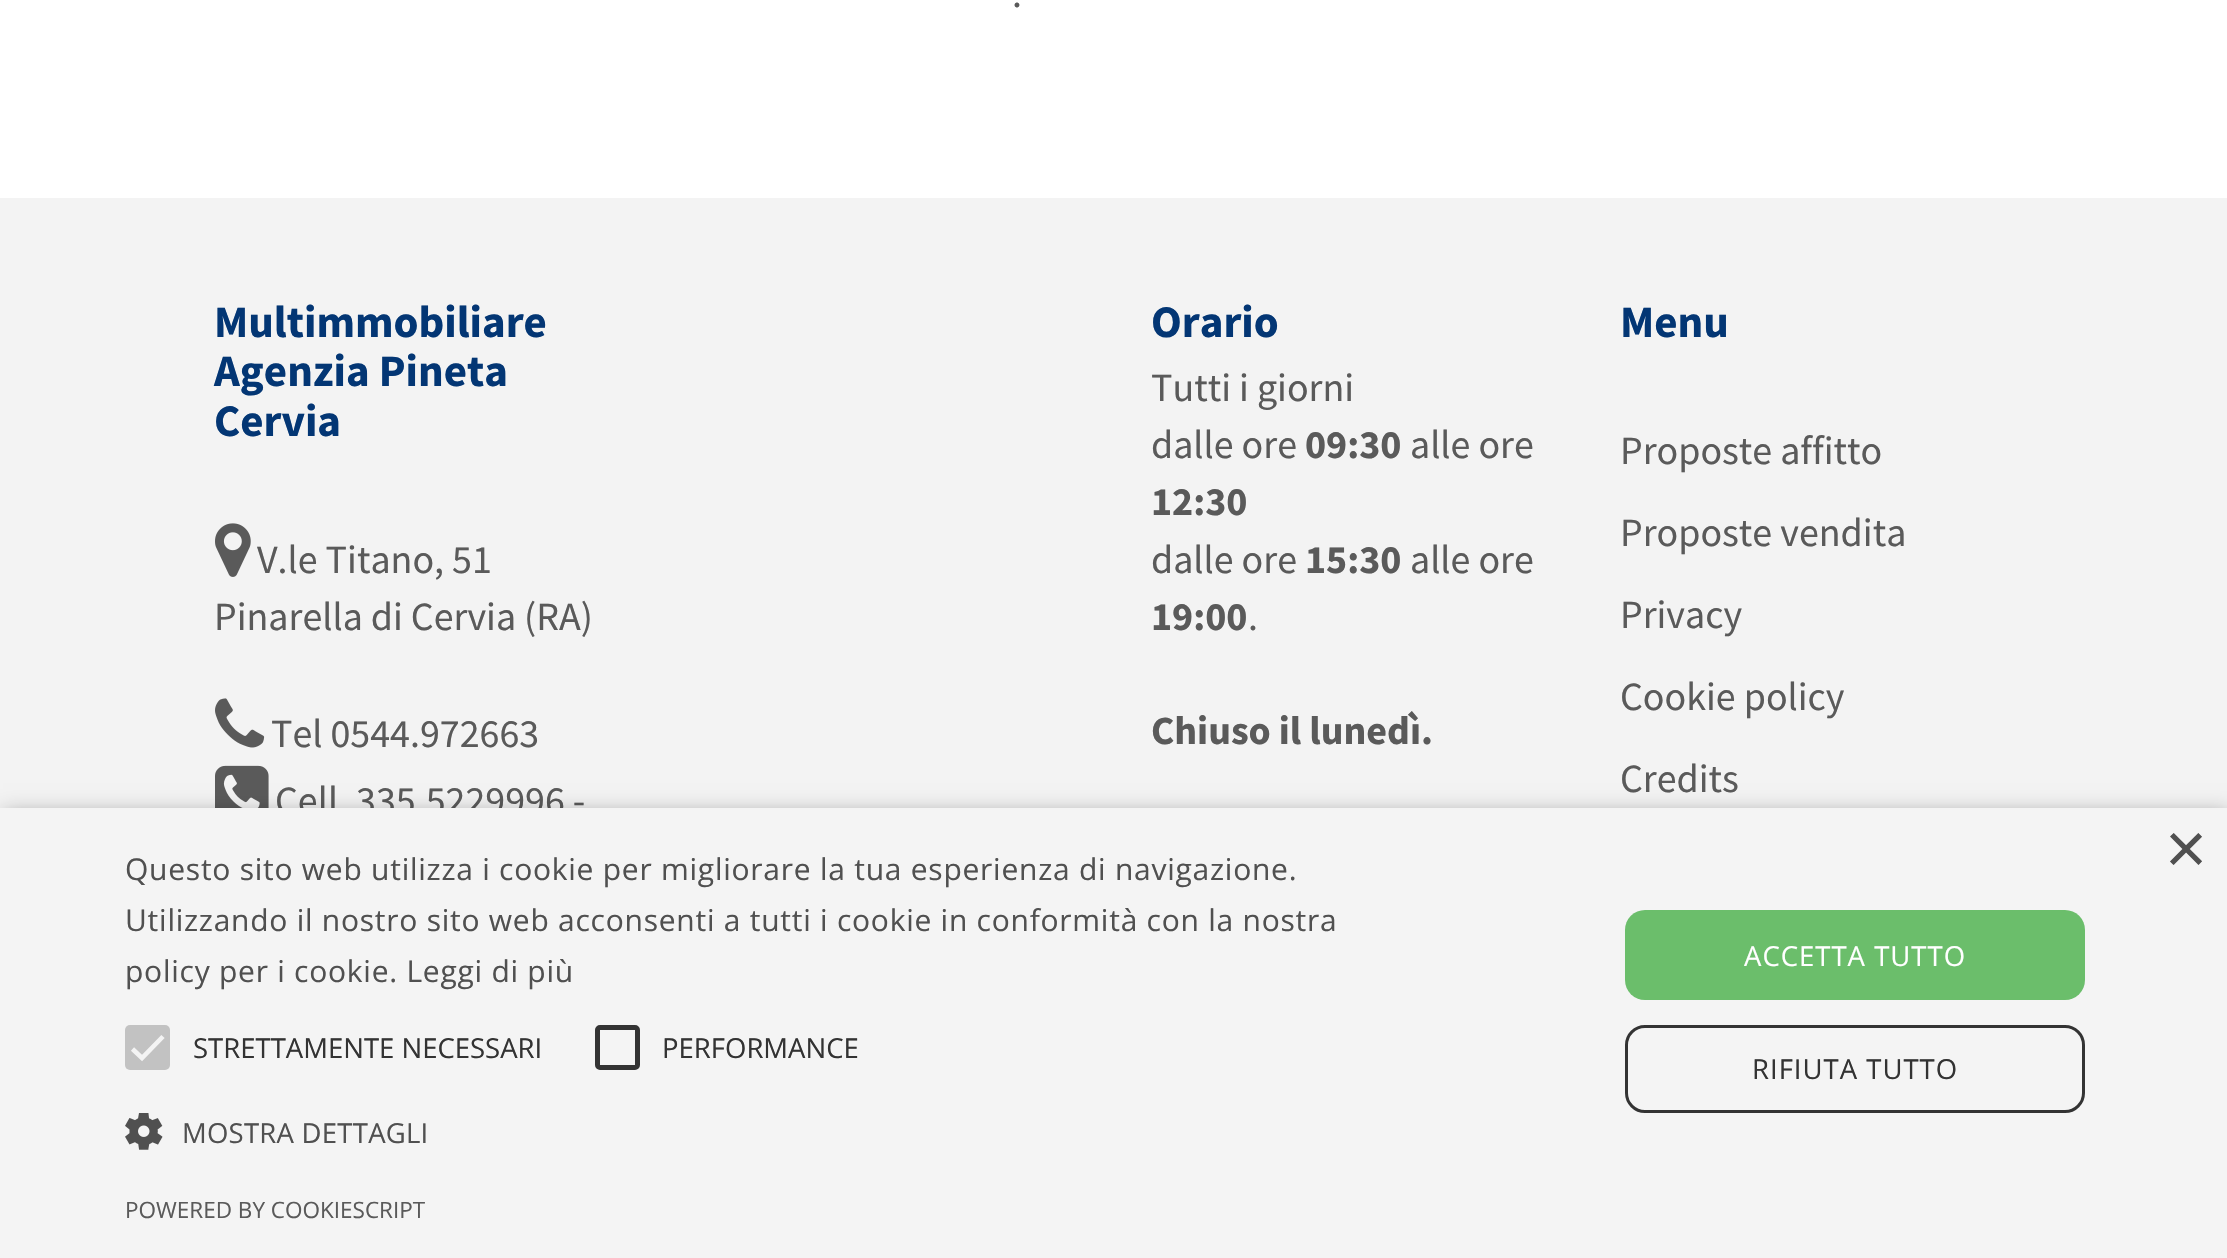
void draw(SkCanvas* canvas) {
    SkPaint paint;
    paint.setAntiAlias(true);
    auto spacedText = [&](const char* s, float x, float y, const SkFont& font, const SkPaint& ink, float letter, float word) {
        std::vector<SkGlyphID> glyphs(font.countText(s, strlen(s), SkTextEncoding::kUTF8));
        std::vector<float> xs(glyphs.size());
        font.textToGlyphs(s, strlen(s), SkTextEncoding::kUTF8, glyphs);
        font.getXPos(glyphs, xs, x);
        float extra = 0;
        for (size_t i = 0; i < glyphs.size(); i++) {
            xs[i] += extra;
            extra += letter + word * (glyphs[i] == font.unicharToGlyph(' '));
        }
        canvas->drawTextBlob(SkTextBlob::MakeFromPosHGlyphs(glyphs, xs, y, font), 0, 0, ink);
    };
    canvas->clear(0xFFFFFFFF);
    SkFont font1(fontMgr->matchFamilyStyle("Source Sans Pro", SkFontStyle::Normal()), 40);
    font1.setSubpixel(true);
    paint.setColor(0xFF5A5A5A);
    canvas->drawString(".", 1012, 7, font1, paint);
    paint.setColor(0xFFF3F3F3);
    canvas->drawRect(SkRect::MakeXYWH(0, 198, 2227, 610), paint);
    SkFont font2(fontMgr->matchFamilyStyle("Source Sans Pro", SkFontStyle::Bold()), 45);
    font2.setSubpixel(true);
    paint.setColor(0xFF033674);
    canvas->drawString("Multimmobiliare", 214, 337, font2, paint);
    canvas->drawString("Agenzia Pineta", 214, 386, font2, paint);
    canvas->drawString("Cervia", 214, 436, font2, paint);
    canvas->drawImageRect(SkImages::DeferredFromEncodedData(SkData::MakeFromFileName("img1.png")), SkRect::MakeXYWH(215, 523, 36, 54), SkSamplingOptions());
    paint.setColor(0xFF5A5A5A);
    canvas->drawString("V.le Titano, 51", 257, 573, font1, paint);
    canvas->drawString("Pinarella di Cervia (RA)", 214, 630, font1, paint);
    canvas->drawImageRect(SkImages::DeferredFromEncodedData(SkData::MakeFromFileName("img2.png")), SkRect::MakeXYWH(215, 698, 50, 50), SkSamplingOptions());
    canvas->drawString("Tel 0544.972663", 271, 747, font1, paint);
    canvas->drawImageRect(SkImages::DeferredFromEncodedData(SkData::MakeFromFileName("img3.png")), SkRect::MakeXYWH(215, 765, 54, 43), SkSamplingOptions());
    canvas->drawString("Cell. 335.5229996 -", 275, 814, font1, paint);
    paint.setColor(0xFF033674);
    canvas->drawString("Orario", 1151, 337, font2, paint);
    paint.setColor(0xFF5A5A5A);
    canvas->drawString("Tutti i giorni", 1151, 401, font1, paint);
    canvas->drawString("dalle ore", 1151, 458, font1, paint);
    SkFont font3(fontMgr->matchFamilyStyle("Source Sans Pro", SkFontStyle::Bold()), 40);
    font3.setSubpixel(true);
    canvas->drawString("09:30", 1305, 458, font3, paint);
    canvas->drawString("alle ore", 1410, 458, font1, paint);
    canvas->drawString("12:30", 1151, 515, font3, paint);
    canvas->drawString("dalle ore", 1151, 573, font1, paint);
    canvas->drawString("15:30", 1305, 573, font3, paint);
    canvas->drawString("alle ore", 1410, 573, font1, paint);
    canvas->drawString("19:00", 1151, 630, font3, paint);
    canvas->drawString(".", 1248, 630, font1, paint);
    canvas->drawString("Chiuso il lunedì.", 1151, 744, font3, paint);
    paint.setColor(0xFF033674);
    canvas->drawString("Menu", 1620, 337, font2, paint);
    paint.setColor(0xFF5A5A5A);
    canvas->drawString("Proposte affitto", 1620, 464, font1, paint);
    canvas->drawString("Proposte vendita", 1620, 546, font1, paint);
    canvas->drawString("Privacy", 1620, 628, font1, paint);
    canvas->drawString("Cookie policy", 1620, 710, font1, paint);
    canvas->drawString("Credits", 1620, 792, font1, paint);
    paint.setColor(0x59000000);
    paint.setMaskFilter(SkMaskFilter::MakeBlur(kNormal_SkBlurStyle, 10));
    canvas->drawRect(SkRect::MakeXYWH(3, 813, 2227, 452), paint);
    paint.setMaskFilter(nullptr);
    paint.setColor(0xFFF4F4F4);
    canvas->drawRect(SkRect::MakeXYWH(0, 808, 2227, 450), paint);
    SkFont font4(fontMgr->matchFamilyStyle("Liberation Sans", SkFontStyle::Normal()), 72);
    font4.setSubpixel(true);
    paint.setColor(0xFF505050);
    canvas->drawString("×", 2165, 873, font4, paint);
    SkFont font5(fontMgr->matchFamilyStyle("Open Sans", SkFontStyle::Normal()), 30);
    font5.setSubpixel(true);
    spacedText("Questo sito web utilizza i cookie per migliorare la tua esperienza di navigazione.", 125, 880, font5, paint, 0.75f, 0);
    spacedText("Utilizzando il nostro sito web acconsenti a tutti i cookie in conformità con la nostra", 125, 931, font5, paint, 0.75f, 0);
    spacedText("policy per i cookie. Leggi di più", 125, 982, font5, paint, 0.75f, 0);
    paint.setColor(0xFFC2C2C2);
    canvas->drawRoundRect(SkRect::MakeXYWH(125, 1025, 45, 45), 5, 5, paint);
    paint.setStyle(SkPaint::kStroke_Style);
    paint.setStrokeWidth(4.6f);
    paint.setColor(0xFFF4F4F4);
    canvas->drawPath(SkPathBuilder().moveTo(132.5f, 1049).lineTo(142, 1058).lineTo(163, 1036.5f).detach(), paint);
    SkFont font6(fontMgr->matchFamilyStyle("Open Sans", SkFontStyle::Normal()), 27.5f);
    font6.setSubpixel(true);
    paint.setStyle(SkPaint::kFill_Style);
    paint.setColor(0xFF333333);
    canvas->drawString("STRETTAMENTE NECESSARI", 193, 1058, font6, paint);
    paint.setStyle(SkPaint::kStroke_Style);
    paint.setStrokeWidth(5);
    canvas->drawRoundRect(SkRect::MakeXYWH(597.5f, 1027.5f, 40, 40), 2.5f, 2.5f, paint);
    paint.setStyle(SkPaint::kFill_Style);
    canvas->drawString("PERFORMANCE", 662, 1058, font6, paint);
    canvas->drawImageRect(SkImages::DeferredFromEncodedData(SkData::MakeFromFileName("img4.png")), SkRect::MakeXYWH(125, 1113, 38, 37), SkSamplingOptions());
    paint.setColor(0xFF505050);
    spacedText("MOSTRA DETTAGLI", 182, 1143, font6, paint, 0.25f, 0);
    paint.setColor(0xFF6BBE6B);
    canvas->drawRoundRect(SkRect::MakeXYWH(1625, 910, 460, 90), 20, 20, paint);
    paint.setColor(0xFFFFFFFF);
    spacedText("ACCETTA TUTTO", 1744, 966, font6, paint, 1, 0);
    paint.setStyle(SkPaint::kStroke_Style);
    paint.setStrokeWidth(3);
    paint.setColor(0xFF333333);
    canvas->drawRoundRect(SkRect::MakeXYWH(1626.5f, 1026.5f, 457, 85), 18.5f, 18.5f, paint);
    paint.setStyle(SkPaint::kFill_Style);
    spacedText("RIFIUTA TUTTO", 1752, 1079, font6, paint, 1, 0);
    SkFont font7(fontMgr->matchFamilyStyle("Open Sans", SkFontStyle::Normal()), 22.5f);
    font7.setSubpixel(true);
    paint.setColor(0xFF5A5A5A);
    canvas->drawString("POWERED BY COOKIESCRIPT", 125, 1218, font7, paint);
}
